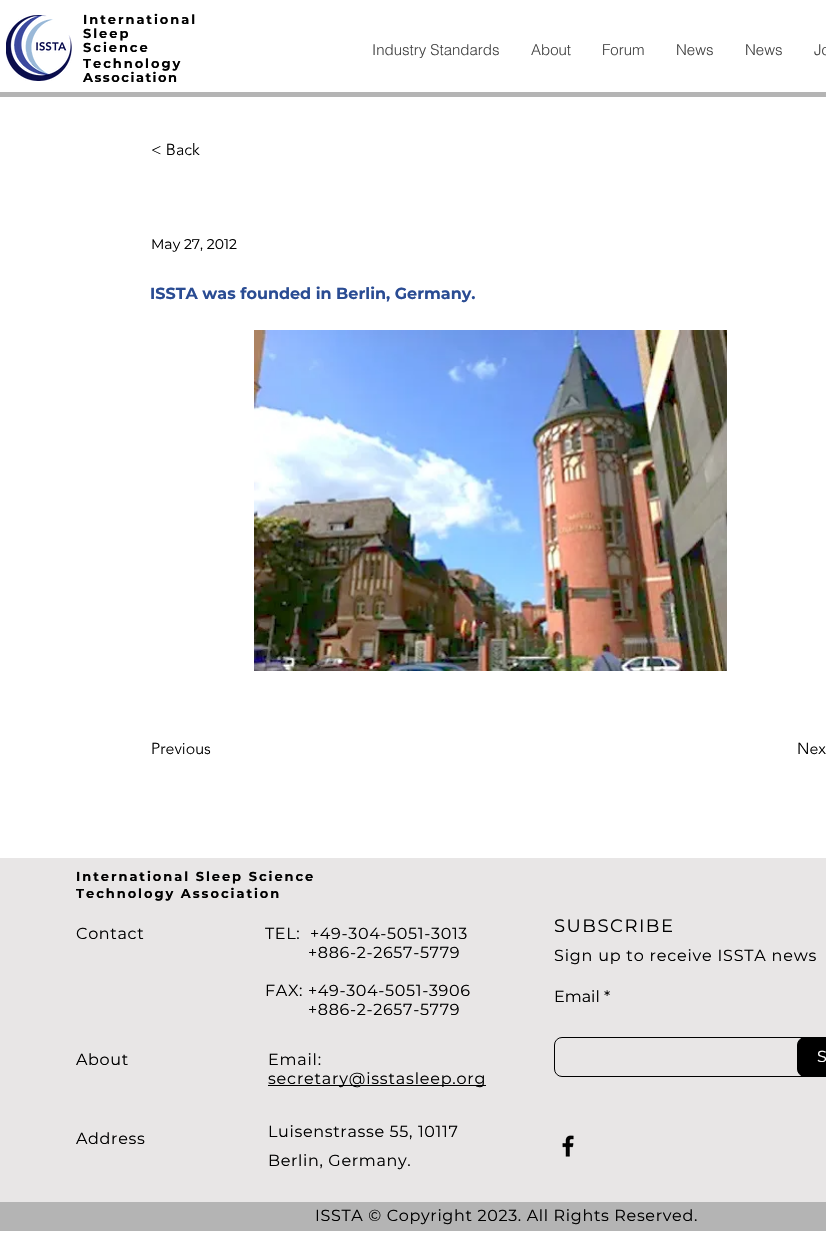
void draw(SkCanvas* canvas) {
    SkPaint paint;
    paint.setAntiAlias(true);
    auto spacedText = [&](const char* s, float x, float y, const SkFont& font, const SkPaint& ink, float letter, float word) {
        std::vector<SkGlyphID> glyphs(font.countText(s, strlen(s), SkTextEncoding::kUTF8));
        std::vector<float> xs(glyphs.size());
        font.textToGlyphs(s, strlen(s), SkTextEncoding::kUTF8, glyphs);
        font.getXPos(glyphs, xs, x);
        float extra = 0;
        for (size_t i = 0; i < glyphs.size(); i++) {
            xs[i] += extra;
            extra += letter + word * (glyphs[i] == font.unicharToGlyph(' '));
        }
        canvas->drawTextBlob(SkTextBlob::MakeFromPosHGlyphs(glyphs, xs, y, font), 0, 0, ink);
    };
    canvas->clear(0xFFFFFFFF);
    canvas->drawImageRect(SkImages::DeferredFromEncodedData(SkData::MakeFromFileName("img1.png")), SkRect::MakeXYWH(6, 15, 66, 66), SkSamplingOptions());
    SkFont font1(fontMgr->matchFamilyStyle("Montserrat", SkFontStyle::Bold()), 13);
    font1.setSubpixel(true);
    paint.setColor(0xFF000000);
    spacedText("International", 83, 24, font1, paint, 1.95f, 0);
    spacedText("Sleep", 83, 38, font1, paint, 1.95f, 0);
    spacedText("Science", 83, 52, font1, paint, 1.95f, 0);
    spacedText("Technology", 83, 68, font1, paint, 1.95f, 0);
    spacedText("Association", 83, 82, font1, paint, 1.5f, 0);
    SkFont font2(fontMgr->matchFamilyStyle("helvetica", SkFontStyle(300, SkFontStyle::kNormal_Width, SkFontStyle::kUpright_Slant)), 15);
    font2.setSubpixel(true);
    paint.setColor(0xFF444444);
    canvas->drawString("Industry Standards", 372, 55, font2, paint);
    canvas->drawString("About", 531, 55, font2, paint);
    canvas->drawString("Forum", 602, 55, font2, paint);
    canvas->drawString("News", 676, 55, font2, paint);
    canvas->drawString("News", 745, 55, font2, paint);
    canvas->drawString("Jo", 814, 55, font2, paint);
    paint.setColor(0xFFB4B4B4);
    canvas->drawRect(SkRect::MakeXYWH(0, 92, 826, 5), paint);
    SkFont font3(fontMgr->matchFamilyStyle("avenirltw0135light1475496", SkFontStyle(300, SkFontStyle::kNormal_Width, SkFontStyle::kUpright_Slant)), 16);
    font3.setSubpixel(true);
    paint.setColor(0xFF000000);
    canvas->drawString("< Back", 151, 155, font3, paint);
    SkFont font4(fontMgr->matchFamilyStyle("Montserrat", SkFontStyle::Normal()), 14);
    font4.setSubpixel(true);
    canvas->drawString("May 27, 2012", 151, 249, font4, paint);
    SkFont font5(fontMgr->matchFamilyStyle("Montserrat", SkFontStyle::Bold()), 16);
    font5.setSubpixel(true);
    paint.setColor(0xFF2A4C93);
    canvas->drawString("ISSTA was founded in Berlin, Germany.", 150, 299, font5, paint);
    canvas->drawImageRect(SkImages::DeferredFromEncodedData(SkData::MakeFromFileName("img2.png")), SkRect::MakeXYWH(254, 330, 473, 341), SkSamplingOptions());
    paint.setColor(0xFF000000);
    canvas->drawString("Previous", 151, 754, font3, paint);
    canvas->drawString("Nex", 797, 754, font3, paint);
    paint.setColor(0xFFE8E6E6);
    canvas->drawRect(SkRect::MakeXYWH(0, 858, 826, 344), paint);
    paint.setColor(0xFF000000);
    spacedText("International Sleep Science", 76, 881, font1, paint, 1.95f, 0);
    spacedText("Technology Association", 76, 898, font1, paint, 1.95f, 0);
    SkFont font6(fontMgr->matchFamilyStyle("Montserrat", SkFontStyle::Normal()), 16);
    font6.setSubpixel(true);
    spacedText("Contact", 76, 939, font6, paint, 0.65f, 0);
    spacedText("TEL:  +49-304-5051-3013", 265, 939, font6, paint, 0.65f, 0);
    spacedText("+886-2-2657-5779", 308, 958, font6, paint, 0.65f, 0);
    spacedText("FAX: +49-304-5051-3906", 265, 996, font6, paint, 0.65f, 0);
    spacedText("+886-2-2657-5779", 308, 1015, font6, paint, 0.65f, 0);
    spacedText("About", 76, 1065, font6, paint, 0.65f, 0);
    spacedText("Email:", 268, 1065, font6, paint, 0.8f, 0);
    canvas->drawRect(SkRect::MakeXYWH(268, 1085, 218, 1), paint);
    spacedText("secretary@isstasleep.org", 268, 1084, font6, paint, 0.8f, 0);
    spacedText("Address", 76, 1144, font6, paint, 0.65f, 0);
    spacedText("Luisenstrasse 55, 10117", 268, 1137, font6, paint, 0.65f, 0);
    spacedText("Berlin, Germany.", 268, 1166, font6, paint, 0.65f, 0);
    SkFont font7(fontMgr->matchFamilyStyle("Montserrat", SkFontStyle::Normal()), 18);
    font7.setSubpixel(true);
    spacedText("SUBSCRIBE", 554, 932, font7, paint, 1.5f, 0);
    spacedText("Sign up to receive ISSTA news", 554, 961, font6, paint, 0.8f, 0);
    canvas->drawString("Email *", 554, 1002, font6, paint);
    paint.setStyle(SkPaint::kStroke_Style);
    paint.setStrokeWidth(1);
    canvas->drawRoundRect(SkRect::MakeXYWH(554.5f, 1037.5f, 263, 39), 7.5f, 7.5f, paint);
    paint.setStyle(SkPaint::kFill_Style);
    canvas->drawRoundRect(SkRect::MakeXYWH(797.5f, 1037.5f, 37, 39), 7.5f, 7.5f, paint);
    paint.setStyle(SkPaint::kStroke_Style);
    canvas->drawRoundRect(SkRect::MakeXYWH(797.5f, 1037.5f, 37, 39), 7.5f, 7.5f, paint);
    paint.setStyle(SkPaint::kFill_Style);
    paint.setColor(0xFFFFFFFF);
    canvas->drawString("S", 817, 1062, font6, paint);
    canvas->drawImageRect(SkImages::DeferredFromEncodedData(SkData::MakeFromFileName("img3.png")), SkRect::MakeXYWH(562, 1135, 12, 22), SkSamplingOptions());
    paint.setColor(0xFFB4B4B4);
    canvas->drawRect(SkRect::MakeXYWH(0, 1202, 826, 29), paint);
    paint.setColor(0xFF000000);
    spacedText("ISSTA © Copyright 2023. All Rights Reserved.", 315, 1221, font6, paint, 0.65f, 0);
}
